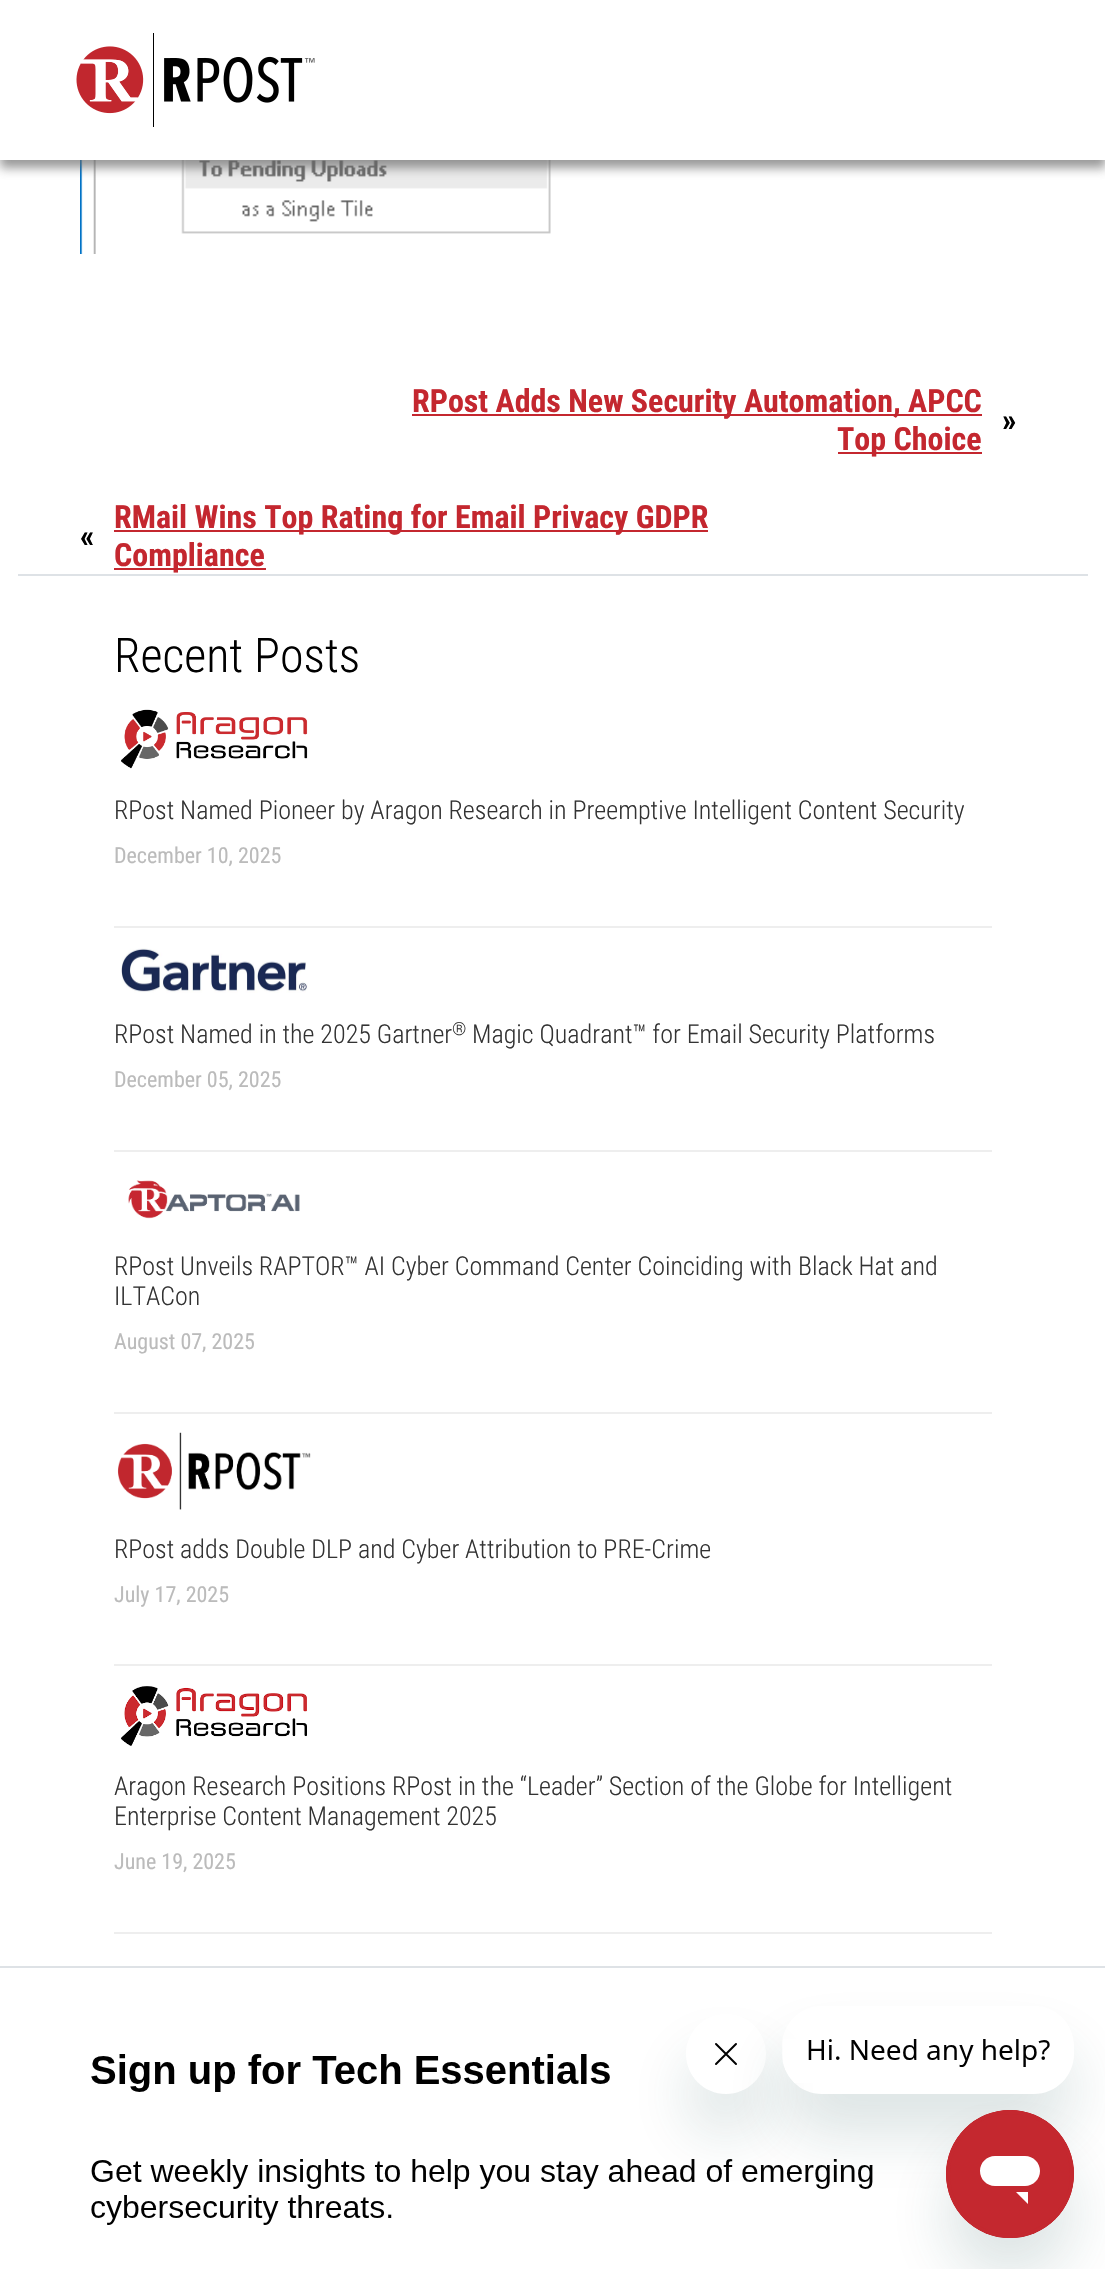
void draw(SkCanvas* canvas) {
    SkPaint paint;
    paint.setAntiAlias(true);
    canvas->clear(0xFFFFFFFF);
    canvas->drawImageRect(SkImages::DeferredFromEncodedData(SkData::MakeFromFileName("img2.png")), SkRect::MakeXYWH(80, 160, 471, 94), SkSamplingOptions());
    paint.setColor(0xAB666666);
    paint.setMaskFilter(SkMaskFilter::MakeBlur(kNormal_SkBlurStyle, 5));
    canvas->drawRect(SkRect::MakeXYWH(0, -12, 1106, 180), paint);
    paint.setMaskFilter(nullptr);
    paint.setColor(0xFFFFFFFF);
    canvas->drawRect(SkRect::MakeXYWH(0, 0, 1105, 160), paint);
    canvas->drawImageRect(SkImages::DeferredFromEncodedData(SkData::MakeFromFileName("img1.png")), SkRect::MakeXYWH(76, 33, 239, 94), SkSamplingOptions());
    paint.setColor(0xFFC4272F);
    canvas->drawRect(SkRect::MakeXYWH(412, 414, 570, 2), paint);
    SkFont font1(fontMgr->matchFamilyStyle("Roboto Condensed", SkFontStyle::Bold()), 32);
    font1.setSubpixel(true);
    canvas->drawString("RPost Adds New Security Automation, APCC", 412, 412, font1, paint);
    canvas->drawRect(SkRect::MakeXYWH(838, 452, 144, 2), paint);
    canvas->drawString("Top Choice", 837, 450, font1, paint);
    paint.setColor(0xFF000000);
    canvas->drawString("»", 1002, 431, font1, paint);
    canvas->drawString("«", 80, 547, font1, paint);
    paint.setColor(0xFFC4272F);
    canvas->drawRect(SkRect::MakeXYWH(114, 530, 594, 2), paint);
    canvas->drawString("RMail Wins Top Rating for Email Privacy GDPR", 114, 528, font1, paint);
    canvas->drawRect(SkRect::MakeXYWH(114, 568, 152, 2), paint);
    canvas->drawString("Compliance", 114, 566, font1, paint);
    paint.setColor(0xFFDEE2E6);
    canvas->drawRect(SkRect::MakeXYWH(18, 574, 1070, 2), paint);
    SkFont font2(fontMgr->matchFamilyStyle("Roboto Condensed", SkFontStyle(300, SkFontStyle::kNormal_Width, SkFontStyle::kUpright_Slant)), 48);
    font2.setSubpixel(true);
    paint.setColor(0xFF000000);
    canvas->drawString("Recent Posts", 114, 672, font2, paint);
    paint.setColor(0xFFEEEEEE);
    canvas->drawRect(SkRect::MakeXYWH(114, 926, 878, 2), paint);
    canvas->drawImageRect(SkImages::DeferredFromEncodedData(SkData::MakeFromFileName("img3.png")), SkRect::MakeXYWH(121, 709, 187, 60), SkSamplingOptions());
    SkFont font3(fontMgr->matchFamilyStyle("Roboto Condensed", SkFontStyle(300, SkFontStyle::kNormal_Width, SkFontStyle::kUpright_Slant)), 26);
    font3.setSubpixel(true);
    paint.setColor(0xFF333333);
    canvas->drawString("RPost Named Pioneer by Aragon Research in Preemptive Intelligent Content Security", 114, 819, font3, paint);
    SkFont font4(fontMgr->matchFamilyStyle("Roboto Condensed", SkFontStyle::Normal()), 22);
    font4.setSubpixel(true);
    paint.setColor(0xFFBBBBBB);
    canvas->drawString("December 10, 2025", 114, 863, font4, paint);
    paint.setColor(0xFFEEEEEE);
    canvas->drawRect(SkRect::MakeXYWH(114, 1150, 878, 2), paint);
    canvas->drawImageRect(SkImages::DeferredFromEncodedData(SkData::MakeFromFileName("img4.png")), SkRect::MakeXYWH(121, 948, 187, 45), SkSamplingOptions());
    paint.setColor(0xFF333333);
    canvas->drawString("RPost Named in the 2025 Gartner", 114, 1043, font3, paint);
    SkFont font5(fontMgr->matchFamilyStyle("Roboto Condensed", SkFontStyle(300, SkFontStyle::kNormal_Width, SkFontStyle::kUpright_Slant)), 18);
    font5.setSubpixel(true);
    canvas->drawString("®", 452, 1035, font5, paint);
    canvas->drawString("Magic Quadrant™ for Email Security Platforms", 472, 1043, font3, paint);
    paint.setColor(0xFFBBBBBB);
    canvas->drawString("December 05, 2025", 114, 1087, font4, paint);
    paint.setColor(0xFFEEEEEE);
    canvas->drawRect(SkRect::MakeXYWH(114, 1412, 878, 2), paint);
    canvas->drawImageRect(SkImages::DeferredFromEncodedData(SkData::MakeFromFileName("img5.png")), SkRect::MakeXYWH(128, 1180, 172, 39), SkSamplingOptions());
    paint.setColor(0xFF333333);
    canvas->drawString("RPost Unveils RAPTOR™ AI Cyber Command Center Coinciding with Black Hat and", 114, 1275, font3, paint);
    canvas->drawString("ILTACon", 114, 1305, font3, paint);
    paint.setColor(0xFFBBBBBB);
    canvas->drawString("August 07, 2025", 114, 1349, font4, paint);
    paint.setColor(0xFFEEEEEE);
    canvas->drawRect(SkRect::MakeXYWH(114, 1664, 878, 2), paint);
    canvas->drawImageRect(SkImages::DeferredFromEncodedData(SkData::MakeFromFileName("img6.png")), SkRect::MakeXYWH(117, 1432, 194, 78), SkSamplingOptions());
    paint.setColor(0xFF333333);
    canvas->drawString("RPost adds Double DLP and Cyber Attribution to PRE-Crime", 114, 1558, font3, paint);
    paint.setColor(0xFFBBBBBB);
    canvas->drawString("July 17, 2025", 114, 1602, font4, paint);
    paint.setColor(0xFFEEEEEE);
    canvas->drawRect(SkRect::MakeXYWH(114, 1932, 878, 2), paint);
    canvas->drawImageRect(SkImages::DeferredFromEncodedData(SkData::MakeFromFileName("img7.png")), SkRect::MakeXYWH(121, 1686, 186, 60), SkSamplingOptions());
    paint.setColor(0xFF333333);
    canvas->drawString("Aragon Research Positions RPost in the “Leader” Section of the Globe for Intelligent", 114, 1795, font3, paint);
    canvas->drawString("Enterprise Content Management 2025", 114, 1825, font3, paint);
    paint.setColor(0xFFBBBBBB);
    canvas->drawString("June 19, 2025", 114, 1869, font4, paint);
    paint.setColor(0xFFDEE2E6);
    canvas->drawRect(SkRect::MakeXYWH(0, 1966, 1105, 2), paint);
    canvas->drawImageRect(SkImages::DeferredFromEncodedData(SkData::MakeFromFileName("img11.png")), SkRect::MakeXYWH(91, 2054, 782, 171), SkSamplingOptions());
    canvas->save();
    canvas->clipPath(SkPathBuilder(SkPathFillType::kEvenOdd).moveTo(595, 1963).lineTo(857, 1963).lineTo(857, 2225).lineTo(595, 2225).close().moveTo(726, 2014).cubicTo(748, 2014, 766, 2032, 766, 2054).cubicTo(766, 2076, 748, 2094, 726, 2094).cubicTo(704, 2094, 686, 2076, 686, 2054).cubicTo(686, 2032, 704, 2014, 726, 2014).close().detach(), true);
    paint.setColor(0x2617494D);
    paint.setMaskFilter(SkMaskFilter::MakeBlur(kNormal_SkBlurStyle, 30));
    canvas->drawRoundRect(SkRect::MakeXYWH(686, 2054, 80, 80), 40, 40, paint);
    paint.setMaskFilter(nullptr);
    canvas->restore();
    canvas->drawImageRect(SkImages::DeferredFromEncodedData(SkData::MakeFromFileName("img9.png")), SkRect::MakeXYWH(715, 2043, 22, 22), SkSamplingOptions());
    canvas->save();
    canvas->clipPath(SkPathBuilder(SkPathFillType::kEvenOdd).moveTo(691, 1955).lineTo(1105, 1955).lineTo(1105, 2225).lineTo(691, 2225).close().moveTo(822, 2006).lineTo(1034, 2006).cubicTo(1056, 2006, 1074, 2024, 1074, 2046).lineTo(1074, 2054).cubicTo(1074, 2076, 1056, 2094, 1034, 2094).lineTo(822, 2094).cubicTo(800, 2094, 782, 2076, 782, 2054).lineTo(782, 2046).cubicTo(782, 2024, 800, 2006, 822, 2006).close().detach(), true);
    paint.setMaskFilter(SkMaskFilter::MakeBlur(kNormal_SkBlurStyle, 30));
    canvas->drawRoundRect(SkRect::MakeXYWH(782, 2046, 292, 88), 40, 40, paint);
    paint.setMaskFilter(nullptr);
    canvas->restore();
    canvas->drawImageRect(SkImages::DeferredFromEncodedData(SkData::MakeFromFileName("img8.png")), SkRect::MakeXYWH(783, 2039, 267, 44), SkSamplingOptions());
    paint.setMaskFilter(SkMaskFilter::MakeBlur(kNormal_SkBlurStyle, 30));
    canvas->drawRoundRect(SkRect::MakeXYWH(946, 2150, 128, 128), 64, 64, paint);
    paint.setMaskFilter(nullptr);
    canvas->drawImageRect(SkImages::DeferredFromEncodedData(SkData::MakeFromFileName("img10.png")), SkRect::MakeXYWH(946, 2110, 128, 128), SkSamplingOptions());
}
